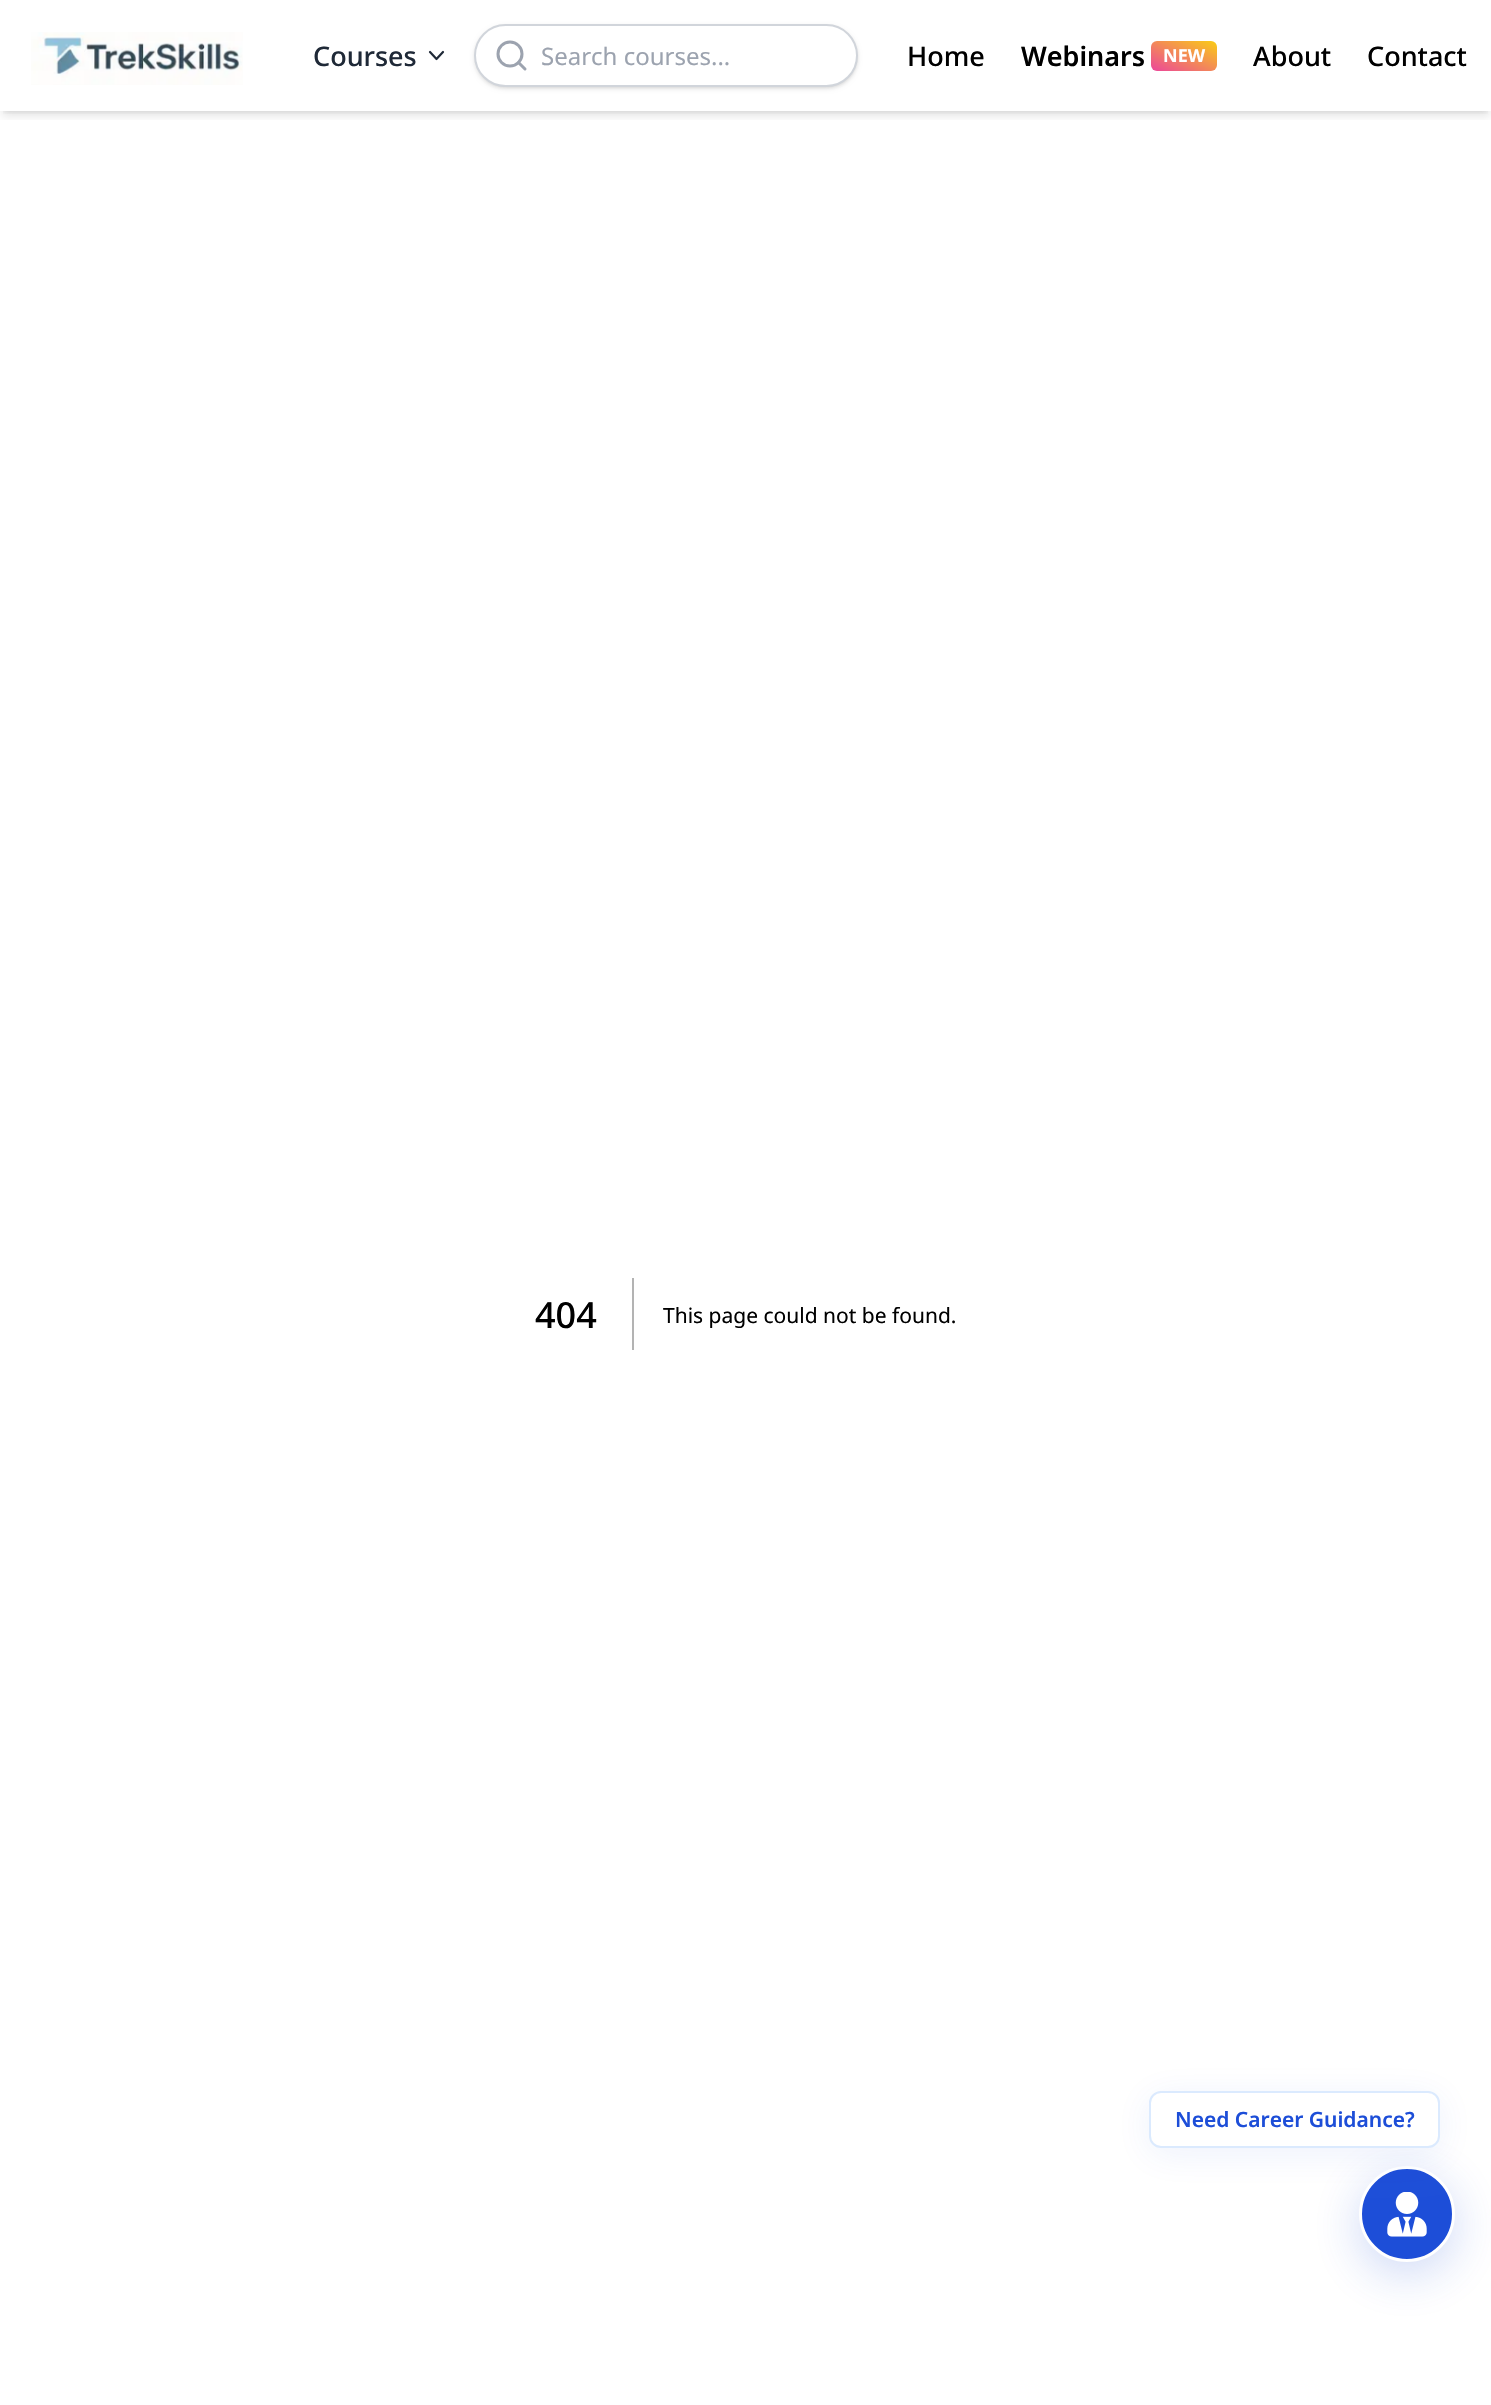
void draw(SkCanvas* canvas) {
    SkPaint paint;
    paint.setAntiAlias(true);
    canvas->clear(0xFFFFFFFF);
    canvas->save();
    canvas->clipRect(SkRect::MakeXYWH(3, 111, 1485, 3));
    paint.setColor(0x1A000000);
    paint.setMaskFilter(SkMaskFilter::MakeBlur(kNormal_SkBlurStyle, 3));
    canvas->drawRect(SkRect::MakeXYWH(3, 6, 1485, 105), paint);
    paint.setMaskFilter(nullptr);
    canvas->restore();
    canvas->save();
    canvas->clipRect(SkRect::MakeXYWH(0, 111, 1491, 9));
    paint.setMaskFilter(SkMaskFilter::MakeBlur(kNormal_SkBlurStyle, 4.5f));
    canvas->drawRect(SkRect::MakeXYWH(2, 8, 1488, 108), paint);
    paint.setMaskFilter(nullptr);
    canvas->restore();
    canvas->drawImageRect(SkImages::DeferredFromEncodedData(SkData::MakeFromFileName("img1.png")), SkRect::MakeXYWH(31, 32, 212, 53), SkSamplingOptions());
    SkFont font1(fontMgr->matchFamilyStyle("Noto Sans", SkFontStyle(500, SkFontStyle::kNormal_Width, SkFontStyle::kUpright_Slant)), 27);
    font1.setSubpixel(true);
    paint.setColor(0xFF1F2937);
    canvas->drawString("Courses", 313, 66, font1, paint);
    paint.setStyle(SkPaint::kStroke_Style);
    paint.setStrokeWidth(2.2f);
    paint.setStrokeCap(SkPaint::kRound_Cap);
    paint.setStrokeJoin(SkPaint::kRound_Join);
    canvas->drawPath(SkPathBuilder().moveTo(430, 52).lineTo(436.5f, 59).lineTo(443, 52).detach(), paint);
    paint.setStyle(SkPaint::kFill_Style);
    paint.setColor(0x1A000000);
    paint.setMaskFilter(SkMaskFilter::MakeBlur(kNormal_SkBlurStyle, 1.5f));
    canvas->drawRoundRect(SkRect::MakeXYWH(476, 27, 381, 60), 30, 30, paint);
    paint.setMaskFilter(nullptr);
    paint.setMaskFilter(SkMaskFilter::MakeBlur(kNormal_SkBlurStyle, 2));
    canvas->drawRoundRect(SkRect::MakeXYWH(474, 26, 384, 63), 31.5f, 31.5f, paint);
    paint.setMaskFilter(nullptr);
    paint.setColor(0xFFFFFFFF);
    canvas->drawRoundRect(SkRect::MakeXYWH(475, 25, 382, 61), 30.5f, 30.5f, paint);
    paint.setStyle(SkPaint::kStroke_Style);
    paint.setStrokeWidth(2);
    paint.setStrokeCap(SkPaint::kButt_Cap);
    paint.setStrokeJoin(SkPaint::kMiter_Join);
    paint.setColor(0xFFD1D5DB);
    canvas->drawRoundRect(SkRect::MakeXYWH(475, 25, 382, 61), 30.5f, 30.5f, paint);
    paint.setStrokeWidth(3);
    paint.setStrokeCap(SkPaint::kRound_Cap);
    paint.setStrokeJoin(SkPaint::kRound_Join);
    paint.setColor(0xFF9CA3AF);
    canvas->drawPath(SkPathBuilder().moveTo(525, 69).lineTo(518.5f, 62.5f).detach(), paint);
    paint.setStrokeCap(SkPaint::kButt_Cap);
    paint.setStrokeJoin(SkPaint::kMiter_Join);
    canvas->drawCircle(510, 54, 12, paint);
    SkFont font2(fontMgr->matchFamilyStyle("Noto Sans", SkFontStyle::Normal()), 24);
    font2.setSubpixel(true);
    paint.setStyle(SkPaint::kFill_Style);
    canvas->drawString("Search courses...", 541, 65, font2, paint);
    paint.setColor(0xFF000000);
    canvas->drawString("Home", 907, 66, font1, paint);
    SkFont font3(fontMgr->matchFamilyStyle("Noto Sans", SkFontStyle(600, SkFontStyle::kNormal_Width, SkFontStyle::kUpright_Slant)), 27);
    font3.setSubpixel(true);
    canvas->drawString("Webinars", 1021, 66, font3, paint);
    {
        const SkColor colors[] = {0xFFEC4899, 0xFFFACC15};
        const float stops[] = {0, 1};
        const SkPoint ends[] = {{1172, 80}, {1195, 31}};
        paint.setShader(SkGradientShader::MakeLinear(ends, colors, stops, 2, SkTileMode::kClamp));
        paint.setAlpha(255);
    }
    canvas->drawRoundRect(SkRect::MakeXYWH(1151, 41, 66, 30), 6, 6, paint);
    SkFont font4(fontMgr->matchFamilyStyle("Noto Sans", SkFontStyle::Bold()), 18);
    font4.setSubpixel(true);
    paint.setShader(nullptr);
    paint.setColor(0xFFFFFFFF);
    canvas->drawString("NEW", 1163, 62, font4, paint);
    paint.setColor(0xFF000000);
    canvas->drawString("About", 1253, 66, font1, paint);
    canvas->drawString("Contact", 1367, 66, font1, paint);
    paint.setColor(0xFFB3B3B3);
    canvas->drawRect(SkRect::MakeXYWH(632, 1278, 2, 72), paint);
    SkFont font5(fontMgr->matchFamilyStyle("Noto Sans", SkFontStyle(500, SkFontStyle::kNormal_Width, SkFontStyle::kUpright_Slant)), 36);
    font5.setSubpixel(true);
    paint.setColor(0xFF000000);
    canvas->drawString("404", 535, 1328, font5, paint);
    SkFont font6(fontMgr->matchFamilyStyle("Noto Sans", SkFontStyle::Normal()), 21);
    font6.setSubpixel(true);
    canvas->drawString("This page could not be found.", 663, 1323, font6, paint);
    paint.setColor(0x381D4ED8);
    paint.setMaskFilter(SkMaskFilter::MakeBlur(kNormal_SkBlurStyle, 24));
    canvas->drawRoundRect(SkRect::MakeXYWH(1359, 2178, 96, 96), 48, 48, paint);
    paint.setMaskFilter(nullptr);
    paint.setColor(0xFF1D4ED8);
    canvas->drawCircle(1407, 2214, 46.5f, paint);
    paint.setStyle(SkPaint::kStroke_Style);
    paint.setColor(0xFFFFFFFF);
    canvas->drawCircle(1407, 2214, 46.5f, paint);
    canvas->drawImageRect(SkImages::DeferredFromEncodedData(SkData::MakeFromFileName("img2.png")), SkRect::MakeXYWH(1387, 2192, 40, 45), SkSamplingOptions());
    paint.setStyle(SkPaint::kFill_Style);
    paint.setColor(0x141D4ED8);
    paint.setMaskFilter(SkMaskFilter::MakeBlur(kNormal_SkBlurStyle, 18));
    canvas->drawRoundRect(SkRect::MakeXYWH(1149, 2097, 291, 57), 12, 12, paint);
    paint.setMaskFilter(nullptr);
    paint.setColor(0xFFFFFFFF);
    canvas->drawRoundRect(SkRect::MakeXYWH(1150, 2092, 289, 55), 11, 11, paint);
    paint.setStyle(SkPaint::kStroke_Style);
    paint.setStrokeWidth(2);
    paint.setColor(0xFFDBEAFE);
    canvas->drawRoundRect(SkRect::MakeXYWH(1150, 2092, 289, 55), 11, 11, paint);
    SkFont font7(fontMgr->matchFamilyStyle("Noto Sans", SkFontStyle(600, SkFontStyle::kNormal_Width, SkFontStyle::kUpright_Slant)), 21);
    font7.setSubpixel(true);
    paint.setStyle(SkPaint::kFill_Style);
    paint.setColor(0xFF1D4ED8);
    canvas->drawString("Need Career Guidance?", 1175, 2127, font7, paint);
}
